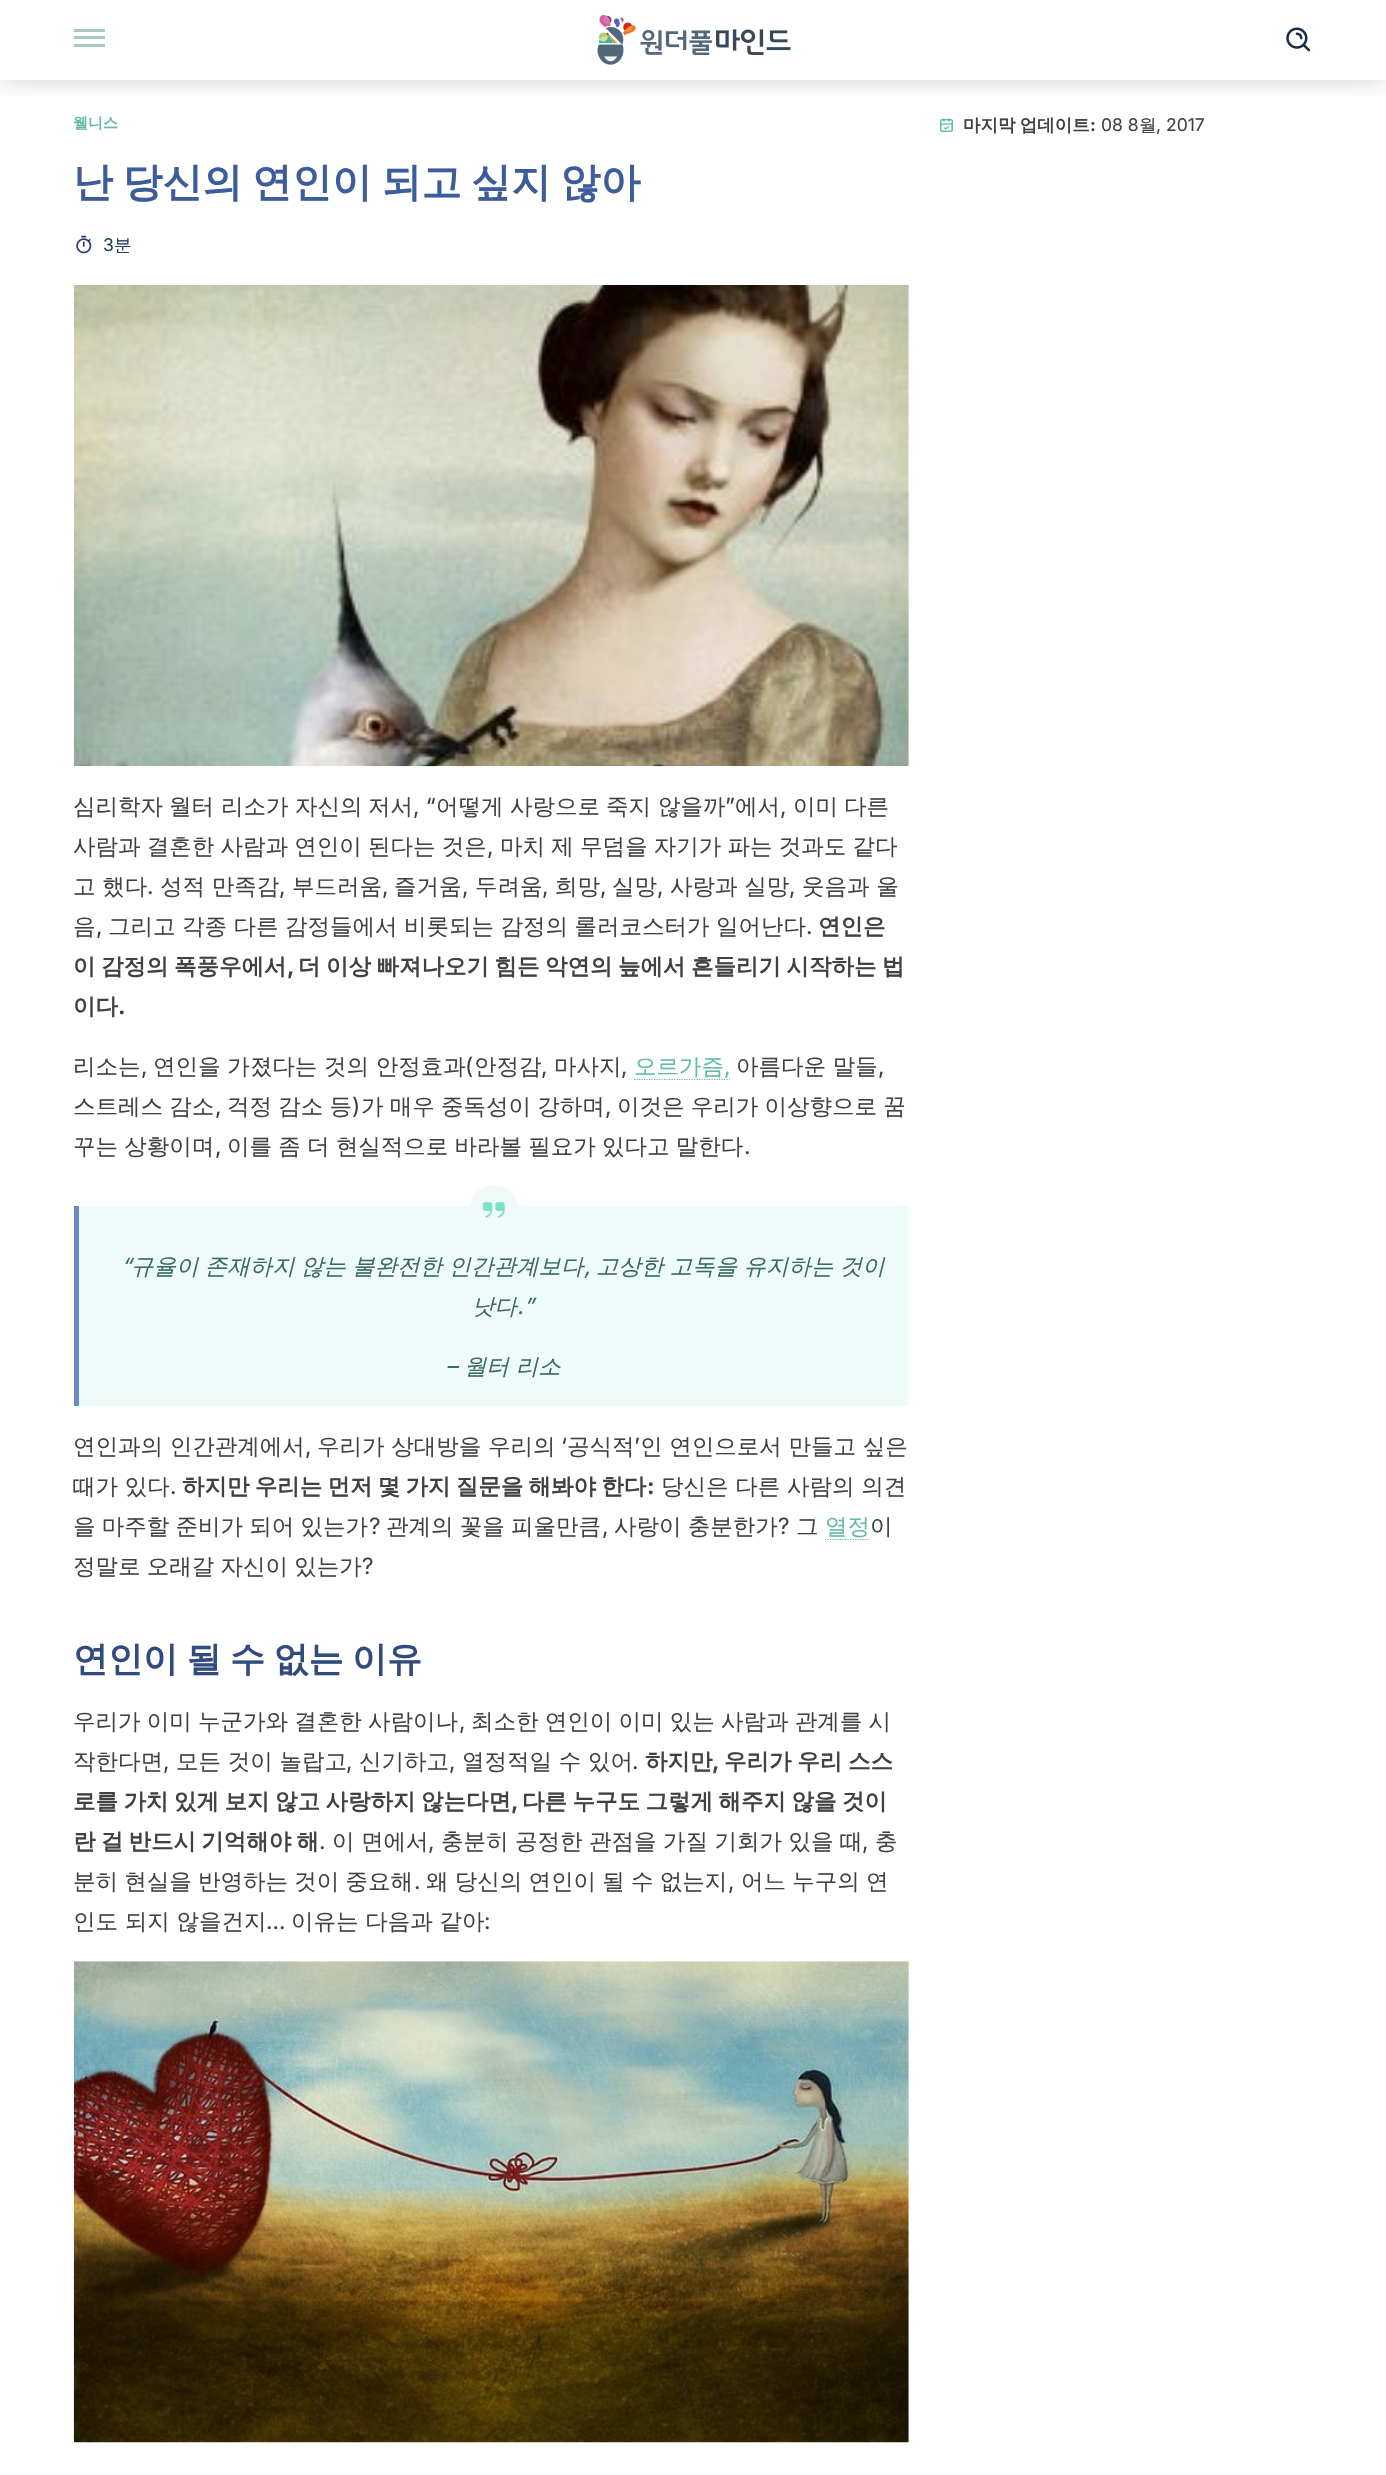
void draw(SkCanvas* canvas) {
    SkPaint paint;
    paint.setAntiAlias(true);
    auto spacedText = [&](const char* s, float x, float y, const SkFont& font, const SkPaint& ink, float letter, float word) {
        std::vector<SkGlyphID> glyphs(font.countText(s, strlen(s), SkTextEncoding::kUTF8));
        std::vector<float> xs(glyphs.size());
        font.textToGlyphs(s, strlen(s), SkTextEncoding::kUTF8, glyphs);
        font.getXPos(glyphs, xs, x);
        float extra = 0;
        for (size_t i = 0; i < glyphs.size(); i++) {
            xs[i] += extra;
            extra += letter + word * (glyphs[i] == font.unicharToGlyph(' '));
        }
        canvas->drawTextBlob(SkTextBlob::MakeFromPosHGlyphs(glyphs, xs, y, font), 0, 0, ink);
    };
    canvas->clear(0xFFFFFFFF);
    canvas->drawImageRect(SkImages::DeferredFromEncodedData(SkData::MakeFromFileName("img7.png")), SkRect::MakeXYWH(940, 118, 13, 14), SkSamplingOptions());
    canvas->save();
    canvas->clipRect(SkRect::MakeXYWH(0, 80, 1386, 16));
    paint.setColor(0x40000000);
    paint.setMaskFilter(SkMaskFilter::MakeBlur(kNormal_SkBlurStyle, 15));
    canvas->drawRect(SkRect::MakeXYWH(0, -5, 1386, 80), paint);
    paint.setMaskFilter(nullptr);
    canvas->restore();
    paint.setColor(0xFFA8C9C1);
    canvas->drawRect(SkRect::MakeXYWH(74, 29, 31, 3), paint);
    canvas->drawRect(SkRect::MakeXYWH(74, 36, 31, 3), paint);
    canvas->drawRect(SkRect::MakeXYWH(74, 44, 31, 3), paint);
    canvas->drawImageRect(SkImages::DeferredFromEncodedData(SkData::MakeFromFileName("img1.png")), SkRect::MakeXYWH(597, 15, 194, 50), SkSamplingOptions());
    canvas->drawImageRect(SkImages::DeferredFromEncodedData(SkData::MakeFromFileName("img2.png")), SkRect::MakeXYWH(1286, 27, 25, 25), SkSamplingOptions());
    SkFont font1(fontMgr->matchFamilyStyle("WenQuanYi Zen Hei", SkFontStyle::Bold()), 15);
    font1.setSubpixel(true);
    paint.setColor(0xFF65BAA6);
    canvas->drawString("웰니스", 73, 128, font1, paint);
    SkFont font2(fontMgr->matchFamilyStyle("WenQuanYi Zen Hei", SkFontStyle::Bold()), 40);
    font2.setSubpixel(true);
    paint.setColor(0xFF3D5C9B);
    spacedText("난 당신의 연인이 되고 싶지 않아", 73, 196, font2, paint, 0, -2.5f);
    canvas->drawImageRect(SkImages::DeferredFromEncodedData(SkData::MakeFromFileName("img3.png")), SkRect::MakeXYWH(76, 235, 16, 19), SkSamplingOptions());
    SkFont font3(fontMgr->matchFamilyStyle("Inter", SkFontStyle::Normal()), 17.5f);
    font3.setSubpixel(true);
    paint.setColor(0xFF273B63);
    canvas->drawString("3", 103, 251, font3, paint);
    SkFont font4(fontMgr->matchFamilyStyle("WenQuanYi Zen Hei", SkFontStyle(500, SkFontStyle::kNormal_Width, SkFontStyle::kUpright_Slant)), 17.5f);
    font4.setSubpixel(true);
    canvas->drawString("분", 114, 251, font4, paint);
    canvas->drawImageRect(SkImages::DeferredFromEncodedData(SkData::MakeFromFileName("img4.png")), SkRect::MakeXYWH(73, 285, 836, 482), SkSamplingOptions());
    SkFont font5(fontMgr->matchFamilyStyle("WenQuanYi Zen Hei", SkFontStyle(500, SkFontStyle::kNormal_Width, SkFontStyle::kUpright_Slant)), 22.5f);
    font5.setSubpixel(true);
    paint.setColor(0xFF414141);
    canvas->drawString("심리학자", 73, 814, font5, paint);
    canvas->drawString("월터", 169, 814, font5, paint);
    canvas->drawString("리소가", 221, 814, font5, paint);
    canvas->drawString("자신의", 295, 814, font5, paint);
    canvas->drawString("저서", 368, 814, font5, paint);
    SkFont font6(fontMgr->matchFamilyStyle("Inter", SkFontStyle::Normal()), 22.5f);
    font6.setSubpixel(true);
    canvas->drawString(", “", 413, 814, font6, paint);
    canvas->drawString("어떻게", 436, 814, font5, paint);
    canvas->drawString("사랑으로", 510, 814, font5, paint);
    canvas->drawString("죽지", 606, 814, font5, paint);
    canvas->drawString("않을까", 658, 814, font5, paint);
    canvas->drawString("”", 725, 814, font6, paint);
    canvas->drawString("에서", 735, 814, font5, paint);
    canvas->drawString(",", 780, 814, font6, paint);
    canvas->drawString("이미", 793, 814, font5, paint);
    canvas->drawString("다른", 844, 814, font5, paint);
    spacedText("사람과 결혼한 사람과 연인이 된다는 것은", 73, 854, font5, paint, 0, -0.5f);
    canvas->drawString(",", 487, 854, font6, paint);
    spacedText("마치 제 무덤을 자기가 파는 것과도 같다", 500, 854, font5, paint, 0, -0.5f);
    canvas->drawString("고 했다", 73, 894, font5, paint);
    canvas->drawString(".", 147, 894, font6, paint);
    canvas->drawString("성적 만족감", 160, 894, font5, paint);
    canvas->drawString(",", 279, 894, font6, paint);
    canvas->drawString("부드러움", 292, 894, font5, paint);
    canvas->drawString(",", 382, 894, font6, paint);
    canvas->drawString("즐거움", 394, 894, font5, paint);
    canvas->drawString(",", 462, 894, font6, paint);
    canvas->drawString("두려움", 475, 894, font5, paint);
    canvas->drawString(",", 542, 894, font6, paint);
    canvas->drawString("희망", 555, 894, font5, paint);
    canvas->drawString(",", 600, 894, font6, paint);
    canvas->drawString("실망", 612, 894, font5, paint);
    canvas->drawString(",", 657, 894, font6, paint);
    canvas->drawString("사랑과 실망", 670, 894, font5, paint);
    canvas->drawString(",", 789, 894, font6, paint);
    canvas->drawString("웃음과 울", 802, 894, font5, paint);
    canvas->drawString("음", 73, 934, font5, paint);
    canvas->drawString(",", 96, 934, font6, paint);
    spacedText("그리고 각종 다른 감정들에서 비롯되는 감정의 롤러코스터가 일어난다", 108, 934, font5, paint, 0, -0.25f);
    canvas->drawString(".", 806, 934, font6, paint);
    SkFont font7(fontMgr->matchFamilyStyle("WenQuanYi Zen Hei", SkFontStyle::Bold()), 22.5f);
    font7.setSubpixel(true);
    canvas->drawString("연인은", 818, 934, font7, paint);
    spacedText("이 감정의 폭풍우에서", 73, 974, font7, paint, 0, -1.25f);
    SkFont font8(fontMgr->matchFamilyStyle("Inter", SkFontStyle::Bold()), 22.5f);
    font8.setSubpixel(true);
    canvas->drawString(",", 287, 974, font8, paint);
    spacedText("더 이상 빠져나오기 힘든 악연의 늪에서 흔들리기 시작하는 법", 298, 974, font7, paint, 0, -1.25f);
    canvas->drawString("이다", 73, 1014, font7, paint);
    canvas->drawString(".", 118, 1014, font8, paint);
    canvas->drawString("리소는", 73, 1074, font5, paint);
    canvas->drawString(",", 141, 1074, font6, paint);
    canvas->drawString("연인을 가졌다는 것의 안정효과", 153, 1074, font5, paint);
    canvas->drawString("(", 465, 1074, font6, paint);
    canvas->drawString("안정감", 474, 1074, font5, paint);
    canvas->drawString(",", 541, 1074, font6, paint);
    canvas->drawString("마사지", 554, 1074, font5, paint);
    canvas->drawString(",", 621, 1074, font6, paint);
    paint.setColor(0xFF65BAA6);
    canvas->drawString("오르가즘", 634, 1074, font5, paint);
    canvas->drawString(",", 724, 1074, font6, paint);
    paint.setStyle(SkPaint::kStroke_Style);
    paint.setStrokeWidth(1.2f);
    paint.setPathEffect(SkDashPathEffect::Make({{1.25f, 1.25f}}, 0));
    canvas->drawPath(SkPathBuilder().moveTo(634, 1079.5f).lineTo(730, 1079.5f).detach(), paint);
    paint.setPathEffect(nullptr);
    paint.setStyle(SkPaint::kFill_Style);
    paint.setColor(0xFF414141);
    canvas->drawString("아름다운 말들", 736, 1074, font5, paint);
    canvas->drawString(",", 878, 1074, font6, paint);
    spacedText("스트레스 감소", 73, 1114, font5, paint, 0, -0.5f);
    canvas->drawString(",", 215, 1114, font6, paint);
    spacedText("걱정 감소 등", 227, 1114, font5, paint, 0, -0.5f);
    canvas->drawString(")", 352, 1114, font6, paint);
    spacedText("가 매우 중독성이 강하며", 361, 1114, font5, paint, 0, -0.5f);
    canvas->drawString(",", 605, 1114, font6, paint);
    spacedText("이것은 우리가 이상향으로 꿈", 617, 1114, font5, paint, 0, -0.5f);
    spacedText("꾸는 상황이며", 73, 1154, font5, paint, 0, -0.5f);
    canvas->drawString(",", 215, 1154, font6, paint);
    spacedText("이를 좀 더 현실적으로 바라볼 필요가 있다고 말한다", 227, 1154, font5, paint, 0, -0.5f);
    canvas->drawString(".", 744, 1154, font6, paint);
    paint.setColor(0xFFEFFBF9);
    canvas->drawRect(SkRect::MakeXYWH(79, 1206, 830, 200), paint);
    paint.setColor(0xFF6C8AC5);
    canvas->drawRect(SkRect::MakeXYWH(74, 1206, 5, 200), paint);
    paint.setColor(0xFFEFFBF9);
    canvas->drawCircle(494, 1210, 25, paint);
    canvas->drawImageRect(SkImages::DeferredFromEncodedData(SkData::MakeFromFileName("img5.png")), SkRect::MakeXYWH(482, 1202, 23, 16), SkSamplingOptions());
    SkFont font9(fontMgr->matchFamilyStyle("Inter", SkFontStyle::Italic()), 22.5f);
    font9.setSubpixel(true);
    paint.setColor(0xFF3A6B5F);
    canvas->drawString("“", 121, 1274, font9, paint);
    SkFont font10(fontMgr->matchFamilyStyle("WenQuanYi Zen Hei", SkFontStyle(500, SkFontStyle::kNormal_Width, SkFontStyle::kItalic_Slant)), 22.5f);
    font10.setSubpixel(true);
    spacedText("규율이 존재하지 않는 불완전한 인간관계보다", 131, 1274, font10, paint, 0, -0.5f);
    canvas->drawString(",", 584, 1274, font9, paint);
    spacedText("고상한 고독을 유지하는 것이", 596, 1274, font10, paint, 0, -0.5f);
    canvas->drawString("낫다", 472, 1314, font10, paint);
    canvas->drawString(".”", 517, 1314, font9, paint);
    canvas->drawString("–", 446, 1374, font9, paint);
    canvas->drawString("월터 리소", 464, 1374, font10, paint);
    paint.setColor(0xFF414141);
    canvas->drawString("연인과의 인간관계에서", 73, 1454, font5, paint);
    canvas->drawString(",", 305, 1454, font6, paint);
    canvas->drawString("우리가 상대방을 우리의", 317, 1454, font5, paint);
    canvas->drawString("‘", 561, 1454, font6, paint);
    canvas->drawString("공식적", 567, 1454, font5, paint);
    canvas->drawString("’", 634, 1454, font6, paint);
    canvas->drawString("인 연인으로서 만들고 싶은", 640, 1454, font5, paint);
    canvas->drawString("때가 있다", 73, 1494, font5, paint);
    canvas->drawString(".", 170, 1494, font6, paint);
    spacedText("하지만 우리는 먼저 몇 가지 질문을 해봐야 한다", 182, 1494, font7, paint, 0, -1.5f);
    canvas->drawString(":", 647, 1494, font8, paint);
    canvas->drawString("당신은 다른 사람의 의견", 661, 1494, font5, paint);
    spacedText("을 마주할 준비가 되어 있는가", 73, 1534, font5, paint, 0, -0.5f);
    canvas->drawString("?", 369, 1534, font6, paint);
    spacedText("관계의 꽃을 피울만큼", 386, 1534, font5, paint, 0, -0.5f);
    canvas->drawString(",", 602, 1534, font6, paint);
    spacedText("사랑이 충분한가", 614, 1534, font5, paint, 0, -0.5f);
    canvas->drawString("?", 778, 1534, font6, paint);
    canvas->drawString("그", 796, 1534, font5, paint);
    paint.setColor(0xFF65BAA6);
    canvas->drawString("열정", 825, 1534, font5, paint);
    paint.setStyle(SkPaint::kStroke_Style);
    paint.setPathEffect(SkDashPathEffect::Make({{1.25f, 1.25f}}, 0));
    canvas->drawPath(SkPathBuilder().moveTo(825, 1539.5f).lineTo(870, 1539.5f).detach(), paint);
    paint.setPathEffect(nullptr);
    paint.setStyle(SkPaint::kFill_Style);
    paint.setColor(0xFF414141);
    canvas->drawString("이", 870, 1534, font5, paint);
    spacedText("정말로 오래갈 자신이 있는가", 73, 1574, font5, paint, 0, -0.5f);
    canvas->drawString("?", 362, 1574, font6, paint);
    SkFont font11(fontMgr->matchFamilyStyle("WenQuanYi Zen Hei", SkFontStyle::Bold()), 35);
    font11.setSubpixel(true);
    paint.setColor(0xFF324B7F);
    spacedText("연인이 될 수 없는 이유", 73, 1671, font11, paint, 0, -2);
    paint.setColor(0xFF414141);
    spacedText("우리가 이미 누군가와 결혼한 사람이나", 73, 1729, font5, paint, 0, -0.5f);
    canvas->drawString(",", 459, 1729, font6, paint);
    spacedText("최소한 연인이 이미 있는 사람과 관계를 시", 471, 1729, font5, paint, 0, -0.5f);
    canvas->drawString("작한다면", 73, 1769, font5, paint);
    canvas->drawString(",", 163, 1769, font6, paint);
    canvas->drawString("모든 것이 놀랍고", 176, 1769, font5, paint);
    canvas->drawString(",", 346, 1769, font6, paint);
    canvas->drawString("신기하고", 359, 1769, font5, paint);
    canvas->drawString(",", 449, 1769, font6, paint);
    canvas->drawString("열정적일 수 있어", 462, 1769, font5, paint);
    canvas->drawString(".", 632, 1769, font6, paint);
    canvas->drawString("하지만", 645, 1769, font7, paint);
    canvas->drawString(",", 712, 1769, font8, paint);
    spacedText("우리가 우리 스스", 724, 1769, font7, paint, 0, -1);
    spacedText("로를 가치 있게 보지 않고 사랑하지 않는다면", 73, 1809, font7, paint, 0, -1.25f);
    canvas->drawString(",", 511, 1809, font8, paint);
    spacedText("다른 누구도 그렇게 해주지 않을 것이", 522, 1809, font7, paint, 0, -1.25f);
    spacedText("란 걸 반드시 기억해야 해", 73, 1849, font7, paint, 0, -1.5f);
    canvas->drawString(".", 319, 1849, font6, paint);
    spacedText("이 면에서", 332, 1849, font5, paint, 0, -0.25f);
    canvas->drawString(",", 428, 1849, font6, paint);
    spacedText("충분히 공정한 관점을 가질 기회가 있을 때", 441, 1849, font5, paint, 0, -0.25f);
    canvas->drawString(",", 862, 1849, font6, paint);
    canvas->drawString("충", 875, 1849, font5, paint);
    spacedText("분히 현실을 반영하는 것이 중요해", 73, 1889, font5, paint, 0, -0.5f);
    canvas->drawString(".", 414, 1889, font6, paint);
    spacedText("왜 당신의 연인이 될 수 없는지", 426, 1889, font5, paint, 0, -0.5f);
    canvas->drawString(",", 728, 1889, font6, paint);
    spacedText("어느 누구의 연", 741, 1889, font5, paint, 0, -0.5f);
    canvas->drawString("인도 되지 않을건지", 73, 1929, font5, paint);
    canvas->drawString("…", 266, 1929, font6, paint);
    canvas->drawString("이유는 다음과 같아", 291, 1929, font5, paint);
    canvas->drawString(":", 484, 1929, font6, paint);
    canvas->drawImageRect(SkImages::DeferredFromEncodedData(SkData::MakeFromFileName("img6.png")), SkRect::MakeXYWH(73, 1961, 836, 482), SkSamplingOptions());
    SkFont font12(fontMgr->matchFamilyStyle("WenQuanYi Zen Hei", SkFontStyle::Bold()), 17.5f);
    font12.setSubpixel(true);
    spacedText("마지막 업데이트", 963, 131, font12, paint, 0, -1);
    SkFont font13(fontMgr->matchFamilyStyle("Inter", SkFontStyle::Bold()), 17.5f);
    font13.setSubpixel(true);
    canvas->drawString(":", 1090, 131, font13, paint);
    canvas->drawString("08 8", 1101, 131, font3, paint);
    canvas->drawString("월", 1139, 131, font4, paint);
    canvas->drawString(", 2017", 1156, 131, font3, paint);
}
